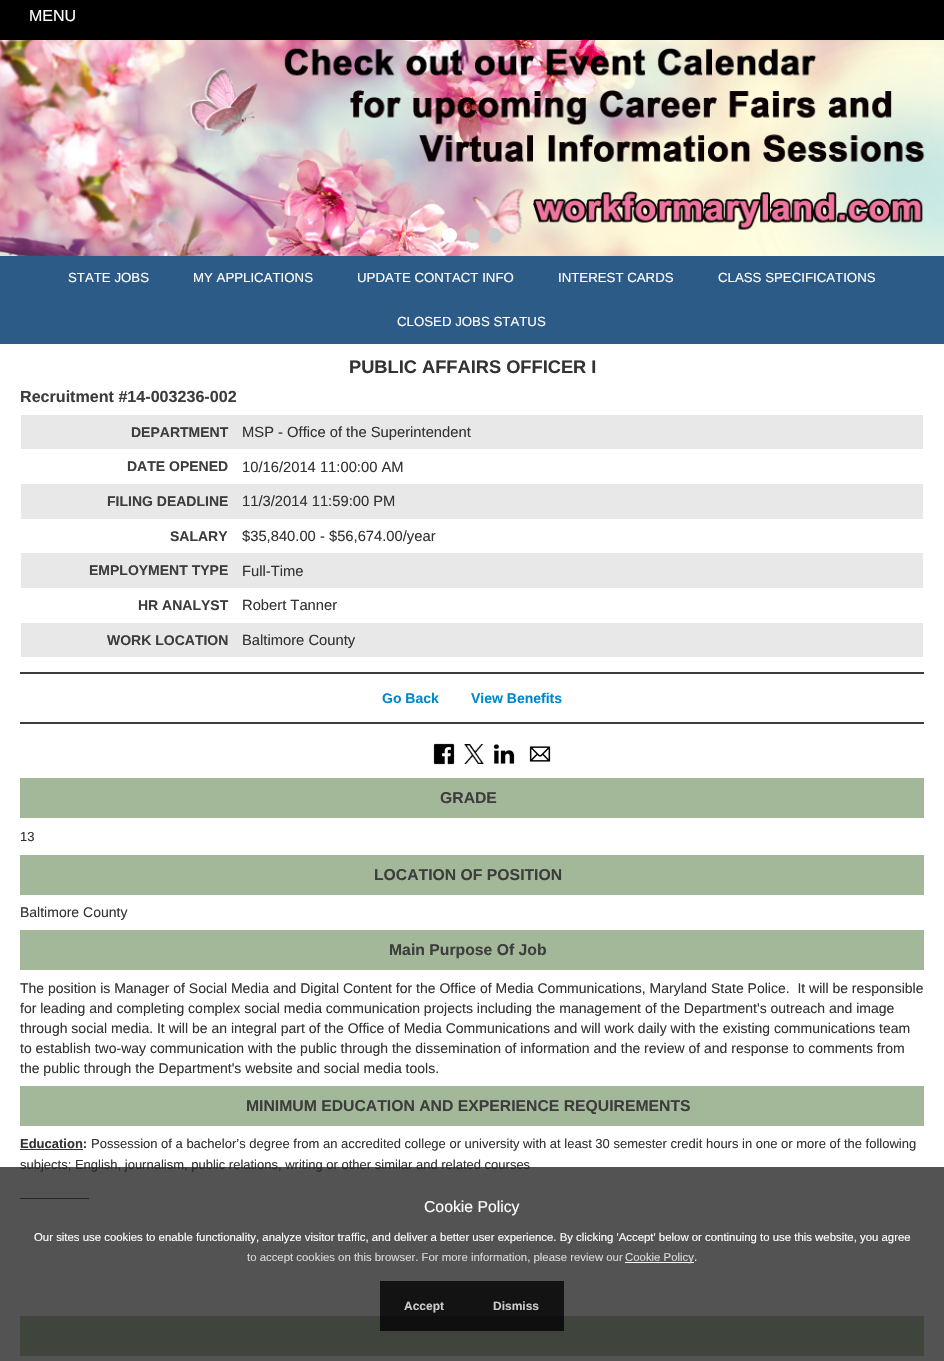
void draw(SkCanvas* canvas) {
    SkPaint paint;
    paint.setAntiAlias(true);
    canvas->clear(0xFFFFFFFF);
    paint.setColor(0xFF000000);
    canvas->drawRect(SkRect::MakeXYWH(0, 0, 944, 40), paint);
    SkFont font1(fontMgr->matchFamilyStyle("Liberation Sans", SkFontStyle::Normal()), 16);
    font1.setSubpixel(true);
    paint.setColor(0xFFFFFFFF);
    canvas->drawString("MENU", 29, 21, font1, paint);
    canvas->drawImageRect(SkImages::DeferredFromEncodedData(SkData::MakeFromFileName("img1.png")), SkRect::MakeXYWH(0, 40, 944, 216), SkSamplingOptions());
    canvas->drawCircle(449.5f, 235.5f, 7.5f, paint);
    paint.setColor(0xFFCCCCCC);
    canvas->drawCircle(472.5f, 235.5f, 7.5f, paint);
    canvas->drawCircle(494.5f, 235.5f, 7.5f, paint);
    paint.setColor(0xFF2C5B88);
    canvas->drawRect(SkRect::MakeXYWH(0, 256, 944, 88), paint);
    SkFont font2(fontMgr->matchFamilyStyle("Liberation Sans", SkFontStyle::Normal()), 13.25f);
    font2.setSubpixel(true);
    paint.setColor(0xFFFFFFFF);
    canvas->drawString("STATE JOBS", 68, 282, font2, paint);
    canvas->drawString("MY APPLICATIONS", 193, 282, font2, paint);
    canvas->drawString("UPDATE CONTACT INFO", 357, 282, font2, paint);
    canvas->drawString("INTEREST CARDS", 558, 282, font2, paint);
    canvas->drawString("CLASS SPECIFICATIONS", 718, 282, font2, paint);
    canvas->drawString("CLOSED JOBS STATUS", 397, 326, font2, paint);
    SkFont font3(fontMgr->matchFamilyStyle("Liberation Sans", SkFontStyle::Bold()), 18.25f);
    font3.setSubpixel(true);
    paint.setColor(0xFF333333);
    canvas->drawString("PUBLIC AFFAIRS OFFICER I", 349, 373, font3, paint);
    SkFont font4(fontMgr->matchFamilyStyle("Liberation Sans", SkFontStyle::Bold()), 16.1f);
    font4.setSubpixel(true);
    paint.setColor(0xFF3D3D3D);
    canvas->drawString("Recruitment #14-003236-002", 20, 402, font4, paint);
    paint.setColor(0xFFE8E8E8);
    canvas->drawRect(SkRect::MakeXYWH(21, 415, 902, 34), paint);
    SkFont font5(fontMgr->matchFamilyStyle("Liberation Sans", SkFontStyle::Bold()), 14);
    font5.setSubpixel(true);
    paint.setColor(0xFF3D3D3D);
    canvas->drawString("DEPARTMENT", 131, 437, font5, paint);
    SkFont font6(fontMgr->matchFamilyStyle("Liberation Sans", SkFontStyle::Normal()), 14.75f);
    font6.setSubpixel(true);
    paint.setColor(0xFF333333);
    canvas->drawString("MSP - Office of the Superintendent", 242, 437, font6, paint);
    paint.setColor(0xFF3D3D3D);
    canvas->drawString("DATE OPENED", 127, 471, font5, paint);
    paint.setColor(0xFF333333);
    canvas->drawString("10/16/2014 11:00:00 AM", 242, 472, font6, paint);
    paint.setColor(0xFFE8E8E8);
    canvas->drawRect(SkRect::MakeXYWH(21, 484, 902, 35), paint);
    paint.setColor(0xFF3D3D3D);
    canvas->drawString("FILING DEADLINE", 107, 506, font5, paint);
    paint.setColor(0xFF333333);
    canvas->drawString("11/3/2014 11:59:00 PM", 242, 506, font6, paint);
    paint.setColor(0xFF3D3D3D);
    canvas->drawString("SALARY", 170, 541, font5, paint);
    paint.setColor(0xFF333333);
    canvas->drawString("$35,840.00 - $56,674.00/year", 242, 541, font6, paint);
    paint.setColor(0xFFE8E8E8);
    canvas->drawRect(SkRect::MakeXYWH(21, 553, 902, 35), paint);
    paint.setColor(0xFF3D3D3D);
    canvas->drawString("EMPLOYMENT TYPE", 89, 575, font5, paint);
    paint.setColor(0xFF333333);
    canvas->drawString("Full-Time", 242, 576, font6, paint);
    paint.setColor(0xFF3D3D3D);
    canvas->drawString("HR ANALYST", 138, 610, font5, paint);
    paint.setColor(0xFF333333);
    canvas->drawString("Robert Tanner", 242, 610, font6, paint);
    paint.setColor(0xFFE8E8E8);
    canvas->drawRect(SkRect::MakeXYWH(21, 623, 902, 34), paint);
    paint.setColor(0xFF3D3D3D);
    canvas->drawString("WORK LOCATION", 107, 645, font5, paint);
    paint.setColor(0xFF333333);
    canvas->drawString("Baltimore County", 242, 645, font6, paint);
    paint.setColor(0xFF3D3D3D);
    canvas->drawRect(SkRect::MakeXYWH(20, 672, 904, 2), paint);
    canvas->drawRect(SkRect::MakeXYWH(20, 722, 904, 2), paint);
    paint.setColor(0xFF0088CC);
    canvas->drawString("Go Back", 382, 703, font5, paint);
    canvas->drawString("View Benefits", 471, 703, font5, paint);
    canvas->drawImageRect(SkImages::DeferredFromEncodedData(SkData::MakeFromFileName("img2.png")), SkRect::MakeXYWH(433, 743, 22, 22), SkSamplingOptions());
    canvas->drawImageRect(SkImages::DeferredFromEncodedData(SkData::MakeFromFileName("img3.png")), SkRect::MakeXYWH(464, 744, 20, 20), SkSamplingOptions());
    canvas->drawImageRect(SkImages::DeferredFromEncodedData(SkData::MakeFromFileName("img4.png")), SkRect::MakeXYWH(493, 744, 22, 20), SkSamplingOptions());
    canvas->drawImageRect(SkImages::DeferredFromEncodedData(SkData::MakeFromFileName("img5.png")), SkRect::MakeXYWH(529, 746, 22, 16), SkSamplingOptions());
    paint.setColor(0xFFA3B899);
    canvas->drawRect(SkRect::MakeXYWH(20, 778, 904, 40), paint);
    SkFont font7(fontMgr->matchFamilyStyle("Liberation Sans", SkFontStyle::Bold()), 15.75f);
    font7.setSubpixel(true);
    paint.setColor(0xFF3D3D3D);
    canvas->drawString("GRADE", 440, 803, font7, paint);
    SkFont font8(fontMgr->matchFamilyStyle("Liberation Sans", SkFontStyle::Normal()), 13);
    font8.setSubpixel(true);
    paint.setColor(0xFF333333);
    canvas->drawString("13", 20, 841, font8, paint);
    paint.setColor(0xFFA3B899);
    canvas->drawRect(SkRect::MakeXYWH(20, 855, 904, 40), paint);
    paint.setColor(0xFF3D3D3D);
    canvas->drawString("LOCATION OF POSITION", 374, 880, font7, paint);
    SkFont font9(fontMgr->matchFamilyStyle("Liberation Sans", SkFontStyle::Normal()), 14);
    font9.setSubpixel(true);
    paint.setColor(0xFF333333);
    canvas->drawString("Baltimore County", 20, 917, font9, paint);
    paint.setColor(0xFFA3B899);
    canvas->drawRect(SkRect::MakeXYWH(20, 930, 904, 40), paint);
    paint.setColor(0xFF3D3D3D);
    canvas->drawString("Main Purpose Of Job", 389, 955, font7, paint);
    paint.setColor(0xFF333333);
    canvas->drawString("The position is Manager of Social Media and Digital Content for the Office of Media Communications, Maryland State Police.  It will be responsible", 20, 993, font9, paint);
    canvas->drawString("for leading and completing complex social media communication projects including the management of the Department's outreach and image", 20, 1013, font9, paint);
    canvas->drawString("through social media. It will be an integral part of the Office of Media Communications and will work daily with the existing communications team", 20, 1033, font9, paint);
    canvas->drawString("to establish two-way communication with the public through the dissemination of information and the review of and response to comments from", 20, 1053, font9, paint);
    canvas->drawString("the public through the Department's website and social media tools.", 20, 1073, font9, paint);
    paint.setColor(0xFFA3B899);
    canvas->drawRect(SkRect::MakeXYWH(20, 1086, 904, 40), paint);
    paint.setColor(0xFF3D3D3D);
    canvas->drawString("MINIMUM EDUCATION AND EXPERIENCE REQUIREMENTS", 246, 1111, font7, paint);
    SkFont font10(fontMgr->matchFamilyStyle("Liberation Sans", SkFontStyle::Bold()), 13);
    font10.setSubpixel(true);
    paint.setColor(0xFF333333);
    canvas->drawString("Education:", 20, 1148, font10, paint);
    canvas->drawRect(SkRect::MakeXYWH(20, 1149, 63, 1), paint);
    canvas->drawString("Possession of a bachelor’s degree from an accredited college or university with at least 30 semester credit hours in one or more of the following", 91, 1148, font8, paint);
    canvas->drawString("subjects; English, journalism, public relations, writing or other similar and related courses", 20, 1169, font8, paint);
    canvas->drawRect(SkRect::MakeXYWH(20, 1198, 69, 1), paint);
    paint.setColor(0xFFA3B899);
    canvas->drawRect(SkRect::MakeXYWH(20, 1316, 904, 40), paint);
    paint.setColor(0xC7232323);
    canvas->drawRect(SkRect::MakeXYWH(0, 1167, 944, 194), paint);
    SkFont font11(fontMgr->matchFamilyStyle("Liberation Sans", SkFontStyle::Normal()), 15.75f);
    font11.setSubpixel(true);
    paint.setColor(0xFFFFFFFF);
    canvas->drawString("Cookie Policy", 424, 1212, font11, paint);
    SkFont font12(fontMgr->matchFamilyStyle("Liberation Sans", SkFontStyle::Normal()), 11.38f);
    font12.setSubpixel(true);
    canvas->drawString("Our sites use cookies to enable functionality, analyze visitor traffic, and deliver a better user experience. By clicking 'Accept' below or continuing to use this website, you agree", 34, 1241, font12, paint);
    paint.setColor(0xFFD9D9D9);
    canvas->drawString("to accept cookies on this browser. For more information, please review our", 247, 1261, font12, paint);
    paint.setColor(0xFFFFFFFF);
    canvas->drawRect(SkRect::MakeXYWH(625, 1262, 69, 1), paint);
    paint.setColor(0xFFD9D9D9);
    canvas->drawString("Cookie Policy", 625, 1261, font12, paint);
    paint.setColor(0xFFFFFFFF);
    canvas->drawString(".", 694, 1261, font12, paint);
    paint.setColor(0xC7000000);
    canvas->drawRect(SkRect::MakeXYWH(380, 1281, 89, 50), paint);
    SkFont font13(fontMgr->matchFamilyStyle("Liberation Sans", SkFontStyle::Bold()), 12);
    font13.setSubpixel(true);
    paint.setColor(0xFFCBCBCB);
    canvas->drawString("Accept", 404, 1310, font13, paint);
    paint.setColor(0xC7000000);
    canvas->drawRect(SkRect::MakeXYWH(469, 1281, 95, 50), paint);
    paint.setColor(0xFFCBCBCB);
    canvas->drawString("Dismiss", 493, 1310, font13, paint);
}
